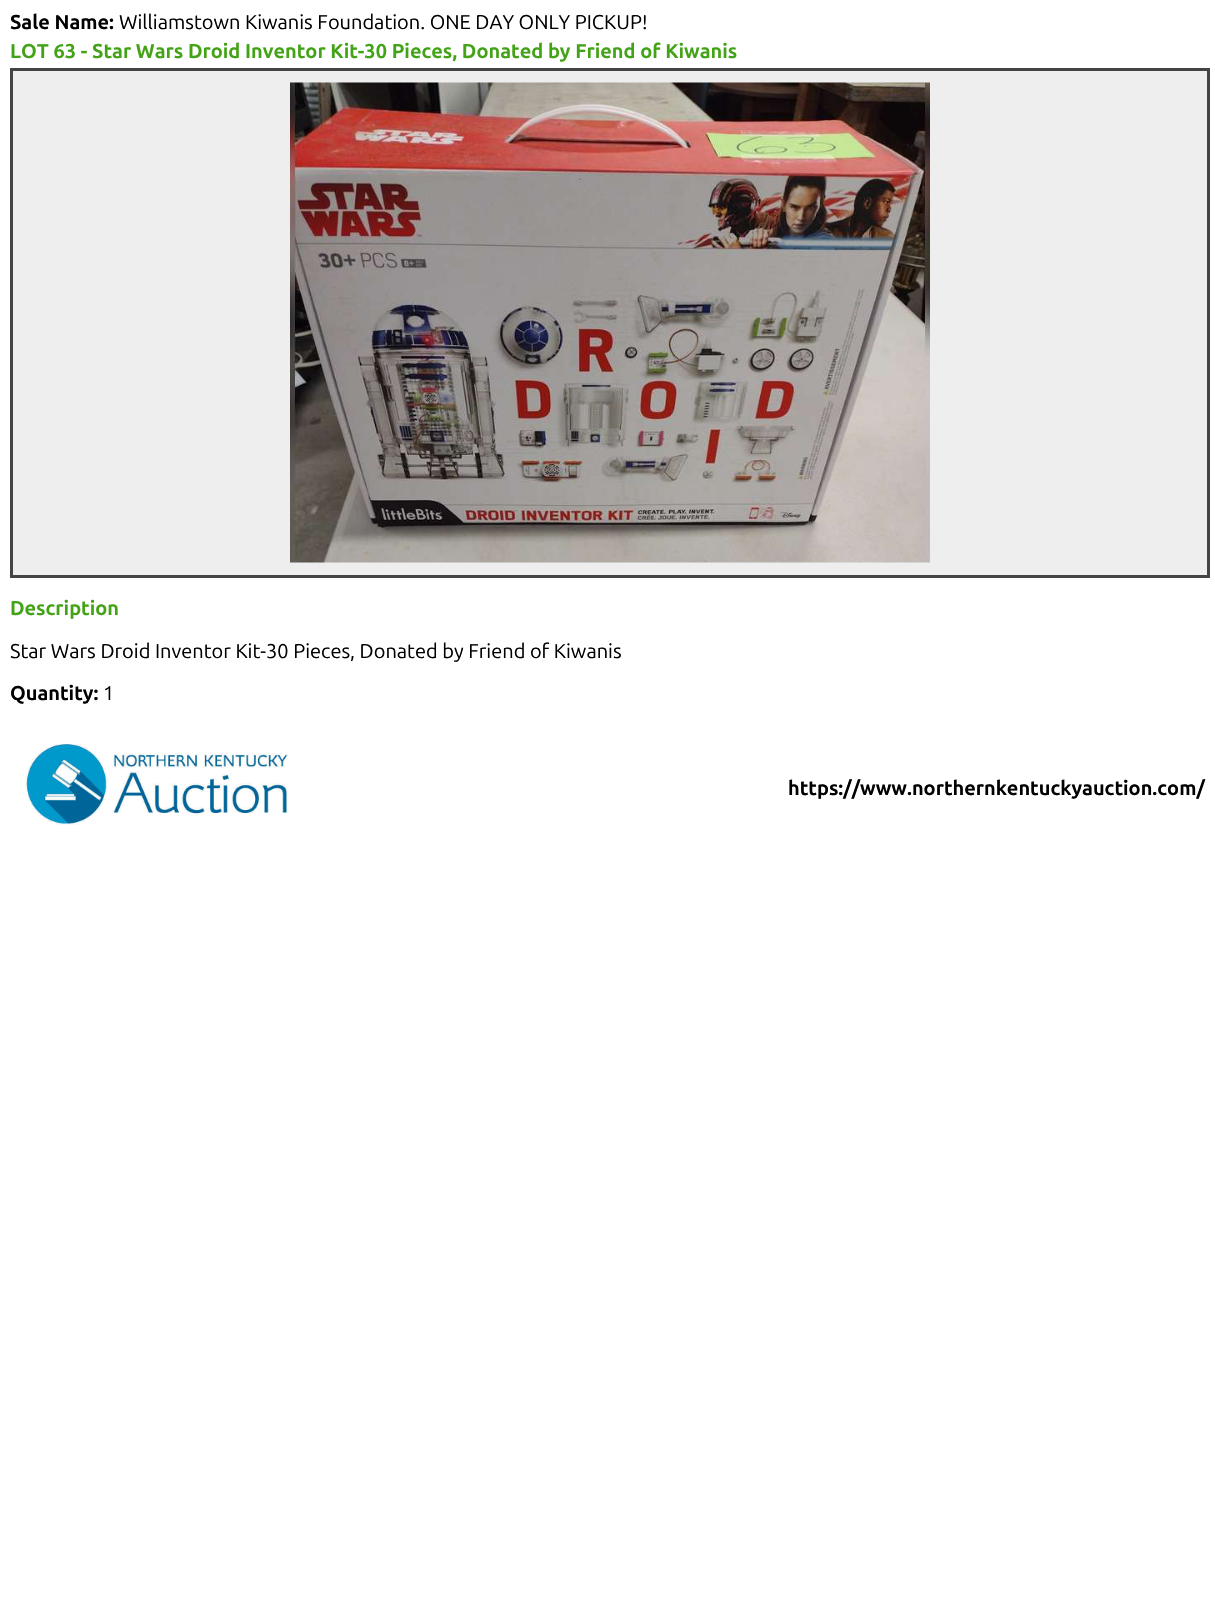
void draw(SkCanvas* canvas) {
    SkPaint paint;
    paint.setAntiAlias(true);
    canvas->clear(0xFFFFFFFF);
    SkFont font1(fontMgr->matchFamilyStyle("Ubuntu", SkFontStyle::Bold()), 20);
    font1.setSubpixel(true);
    paint.setColor(0xFF000000);
    canvas->drawString("Sale Name:", 10, 29, font1, paint);
    SkFont font2(fontMgr->matchFamilyStyle("Ubuntu", SkFontStyle::Normal()), 20);
    font2.setSubpixel(true);
    canvas->drawString("Williamstown Kiwanis Foundation. ONE DAY ONLY PICKUP!", 119, 29, font2, paint);
    paint.setColor(0xFF42A316);
    canvas->drawString("LOT 63 - Star Wars Droid Inventor Kit-30 Pieces, Donated by Friend of Kiwanis", 10, 58, font1, paint);
    paint.setColor(0xFFEEEEEE);
    canvas->drawRect(SkRect::MakeXYWH(11.5f, 69.5f, 1197, 507), paint);
    paint.setStyle(SkPaint::kStroke_Style);
    paint.setStrokeWidth(3);
    paint.setColor(0xFF444444);
    canvas->drawRect(SkRect::MakeXYWH(11.5f, 69.5f, 1197, 507), paint);
    canvas->drawImageRect(SkImages::DeferredFromEncodedData(SkData::MakeFromFileName("img1.png")), SkRect::MakeXYWH(290, 82, 640, 481), SkSamplingOptions());
    paint.setStyle(SkPaint::kFill_Style);
    paint.setColor(0xFF42A316);
    canvas->drawString("Description", 10, 615, font1, paint);
    paint.setColor(0xFF000000);
    canvas->drawString("Star Wars Droid Inventor Kit-30 Pieces, Donated by Friend of Kiwanis", 10, 658, font2, paint);
    canvas->drawString("Quantity:", 10, 700, font1, paint);
    canvas->drawString("1", 103, 700, font2, paint);
    canvas->drawImageRect(SkImages::DeferredFromEncodedData(SkData::MakeFromFileName("img2.png")), SkRect::MakeXYWH(25, 744, 263, 81), SkSamplingOptions());
    canvas->drawString("https://www.northernkentuckyauction.com/", 788, 795, font1, paint);
}
